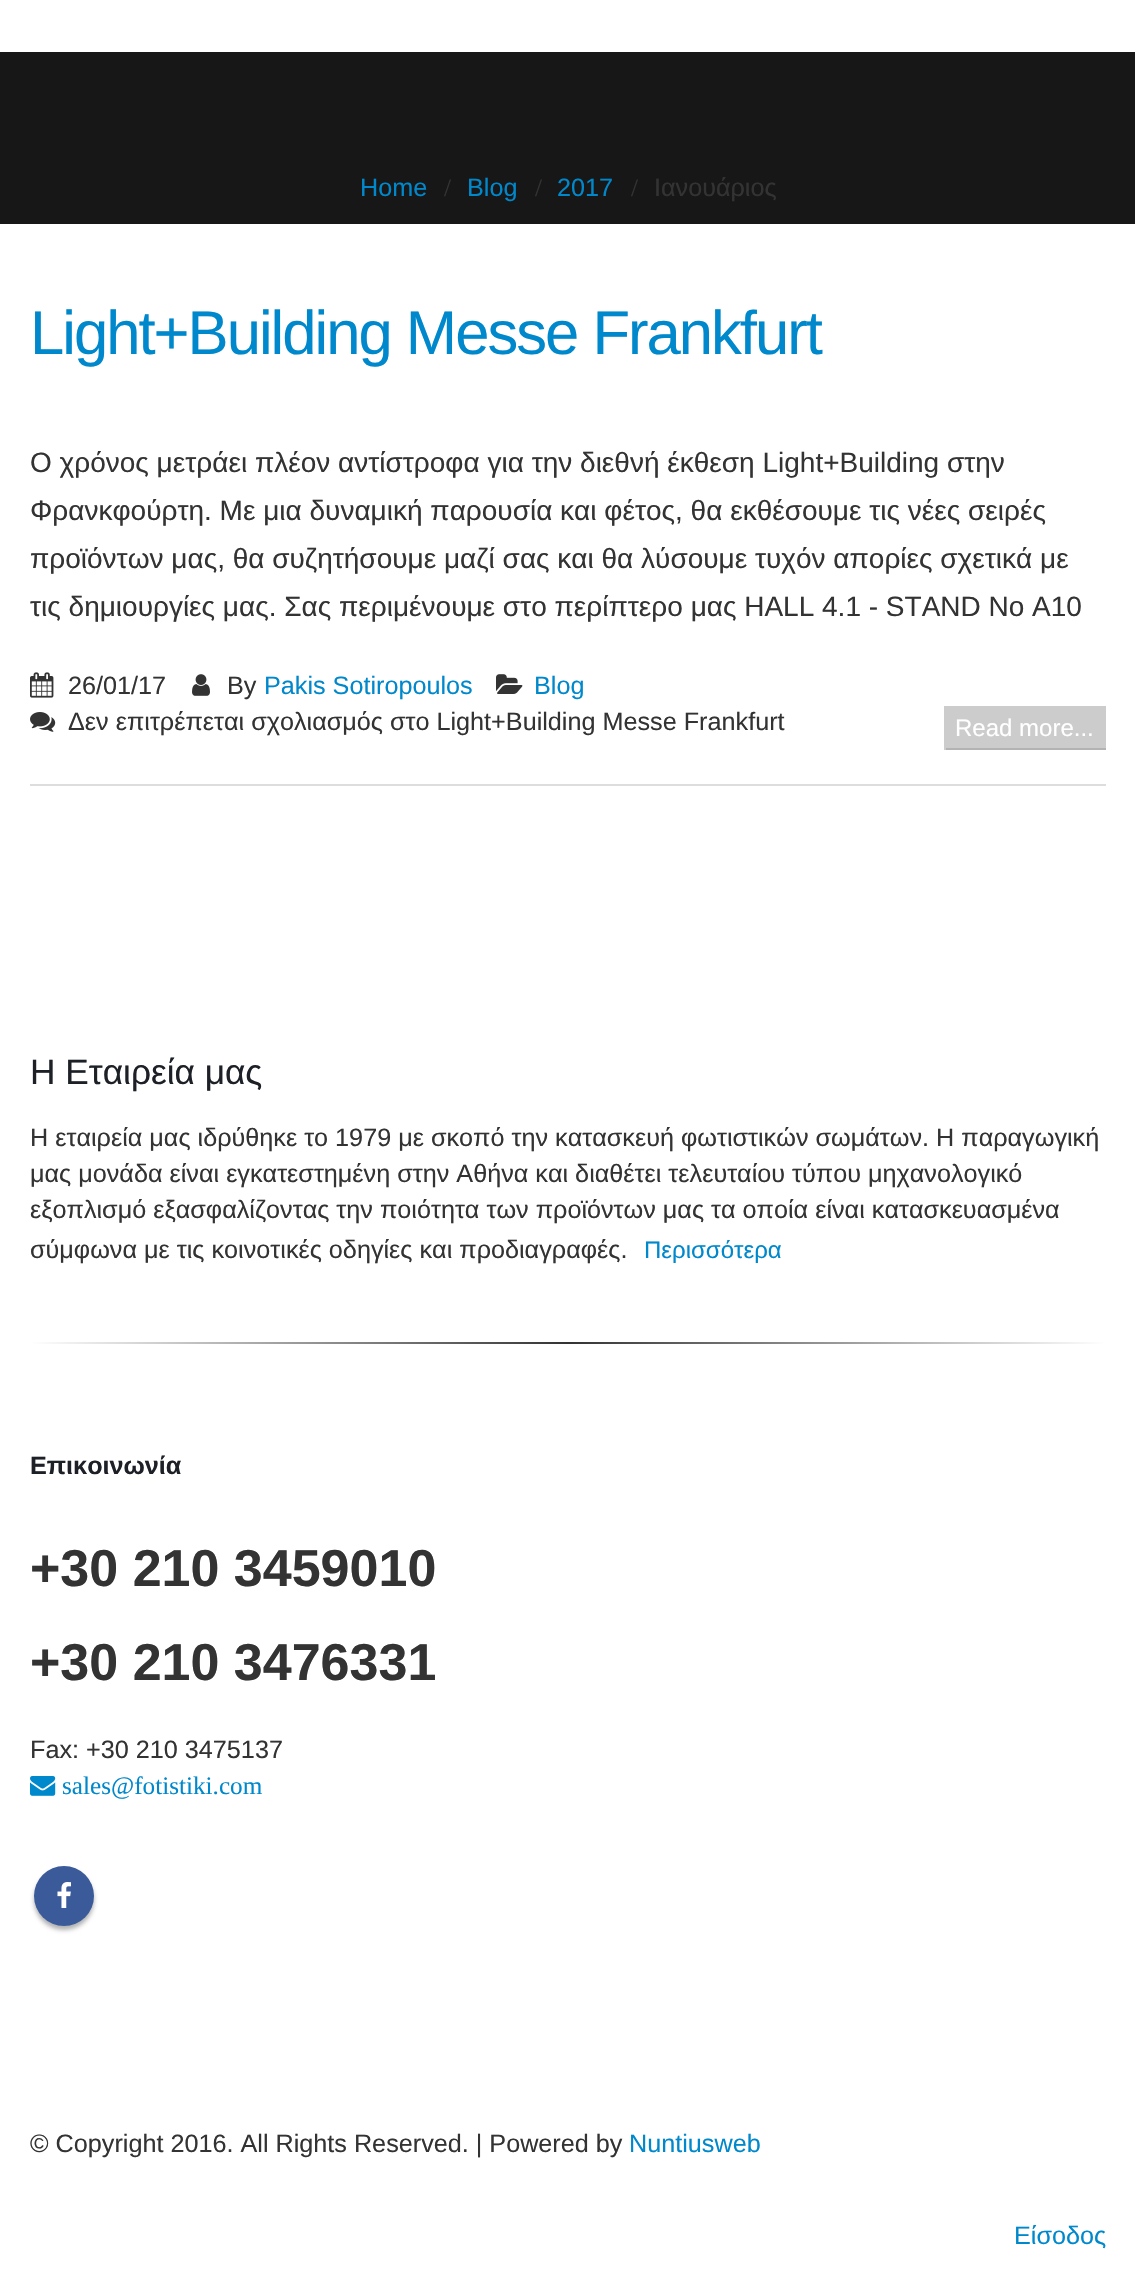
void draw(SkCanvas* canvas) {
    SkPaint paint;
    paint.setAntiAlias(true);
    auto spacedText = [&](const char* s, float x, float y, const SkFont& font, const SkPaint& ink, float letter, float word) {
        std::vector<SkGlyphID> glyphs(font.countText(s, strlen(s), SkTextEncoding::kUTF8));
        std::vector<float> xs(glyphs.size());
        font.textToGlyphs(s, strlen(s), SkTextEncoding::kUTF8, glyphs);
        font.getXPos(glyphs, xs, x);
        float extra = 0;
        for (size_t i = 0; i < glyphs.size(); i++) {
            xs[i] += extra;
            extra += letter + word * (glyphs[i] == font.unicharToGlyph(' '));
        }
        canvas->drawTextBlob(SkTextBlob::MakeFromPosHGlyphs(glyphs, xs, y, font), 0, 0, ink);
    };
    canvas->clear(0xFFFFFFFF);
    paint.setColor(0xFF171717);
    canvas->drawRect(SkRect::MakeXYWH(0, 52, 1135, 172), paint);
    SkFont font1(fontMgr->matchFamilyStyle("Liberation Sans", SkFontStyle::Normal()), 25.2f);
    font1.setSubpixel(true);
    paint.setColor(0xFF0088CC);
    canvas->drawString("Home", 360, 196, font1, paint);
    SkFont font2(fontMgr->matchFamilyStyle("Liberation Serif", SkFontStyle::Normal()), 25.2f);
    font2.setSubpixel(true);
    paint.setColor(0xFF333333);
    canvas->drawString("/", 444, 196, font2, paint);
    paint.setColor(0xFF0088CC);
    canvas->drawString("Blog", 467, 196, font1, paint);
    paint.setColor(0xFF333333);
    canvas->drawString("/", 535, 196, font2, paint);
    paint.setColor(0xFF0088CC);
    canvas->drawString("2017", 557, 196, font1, paint);
    paint.setColor(0xFF333333);
    canvas->drawString("/", 631, 196, font2, paint);
    canvas->drawString("Ιανουάριος", 654, 196, font1, paint);
    paint.setColor(0xFFDDDDDD);
    canvas->drawRect(SkRect::MakeXYWH(30, 784, 1076, 2), paint);
    SkFont font3(fontMgr->matchFamilyStyle("Liberation Sans", SkFontStyle::Normal()), 61.6f);
    font3.setSubpixel(true);
    paint.setColor(0xFF0088CC);
    spacedText("Light+Building Messe Frankfurt", 30, 354, font3, paint, -2, 0);
    SkFont font4(fontMgr->matchFamilyStyle("Liberation Sans", SkFontStyle::Normal()), 28);
    font4.setSubpixel(true);
    paint.setColor(0xFF333333);
    canvas->drawString("Ο χρόνος μετράει πλέον αντίστροφα για την διεθνή έκθεση Light+Building στην", 30, 472, font4, paint);
    canvas->drawString("Φρανκφούρτη. Με μια δυναμική παρουσία και φέτος, θα εκθέσουμε τις νέες σειρές", 30, 520, font4, paint);
    canvas->drawString("προϊόντων μας, θα συζητήσουμε μαζί σας και θα λύσουμε τυχόν απορίες σχετικά με", 30, 568, font4, paint);
    canvas->drawString("τις δημιουργίες μας. Σας περιμένουμε στο περίπτερο μας HALL 4.1 - STAND No A10", 30, 616, font4, paint);
    canvas->drawImageRect(SkImages::DeferredFromEncodedData(SkData::MakeFromFileName("img1.png")), SkRect::MakeXYWH(30, 672, 24, 26), SkSamplingOptions());
    canvas->drawString("26/01/17", 68, 694, font1, paint);
    canvas->drawImageRect(SkImages::DeferredFromEncodedData(SkData::MakeFromFileName("img2.png")), SkRect::MakeXYWH(192, 674, 18, 22), SkSamplingOptions());
    canvas->drawString("By", 227, 694, font1, paint);
    paint.setColor(0xFF0088CC);
    canvas->drawString("Pakis Sotiropoulos", 264, 694, font1, paint);
    canvas->drawImageRect(SkImages::DeferredFromEncodedData(SkData::MakeFromFileName("img3.png")), SkRect::MakeXYWH(496, 674, 27, 20), SkSamplingOptions());
    canvas->drawString("Blog", 534, 694, font1, paint);
    canvas->drawImageRect(SkImages::DeferredFromEncodedData(SkData::MakeFromFileName("img4.png")), SkRect::MakeXYWH(30, 712, 26, 20), SkSamplingOptions());
    paint.setColor(0xFF333333);
    canvas->drawString("Δεν επιτρέπεται σχολιασμός στο Light+Building Messe Frankfurt", 68, 730, font1, paint);
    paint.setColor(0xFFCCCCCC);
    canvas->drawRect(SkRect::MakeXYWH(946, 706, 160, 42), paint);
    paint.setColor(0xFFB3B3B3);
    canvas->drawRect(SkRect::MakeXYWH(944, 748, 162, 2), paint);
    paint.setColor(0xFFCCCCCC);
    canvas->drawRect(SkRect::MakeXYWH(944, 706, 2, 44), paint);
    SkFont font5(fontMgr->matchFamilyStyle("Liberation Sans", SkFontStyle::Normal()), 24);
    font5.setSubpixel(true);
    paint.setColor(0xFFFFFFFF);
    canvas->drawString("Read more...", 955, 736, font5, paint);
    SkFont font6(fontMgr->matchFamilyStyle("Liberation Sans", SkFontStyle::Normal()), 35.25f);
    font6.setSubpixel(true);
    paint.setColor(0xFF1D2127);
    canvas->drawString("Η Εταιρεία μας", 30, 1084, font6, paint);
    paint.setColor(0xFF333333);
    canvas->drawString("Η εταιρεία μας ιδρύθηκε το 1979 με σκοπό την κατασκευή φωτιστικών σωμάτων. H παραγωγική", 30, 1146, font1, paint);
    canvas->drawString("μας μονάδα είναι εγκατεστημένη στην Αθήνα και διαθέτει τελευταίου τύπου μηχανολογικό", 30, 1182, font1, paint);
    canvas->drawString("εξοπλισμό εξασφαλίζοντας την ποιότητα των προϊόντων μας τα οποία είναι κατασκευασμένα", 30, 1218, font1, paint);
    canvas->drawString("σύμφωνα με τις κοινοτικές οδηγίες και προδιαγραφές.", 30, 1258, font1, paint);
    paint.setColor(0xFF0088CC);
    canvas->drawString("Περισσότερα", 644, 1258, font5, paint);
    {
        const SkColor colors[] = {0xFFFFFFFF, 0xFF333333, 0xFFFFFFFF};
        const float stops[] = {0, 0.5f, 1};
        const SkPoint ends[] = {{30, 1343}, {1106, 1343}};
        paint.setShader(SkGradientShader::MakeLinear(ends, colors, stops, 3, SkTileMode::kClamp));
        paint.setAlpha(255);
    }
    canvas->drawRect(SkRect::MakeXYWH(30, 1342, 1076, 2), paint);
    SkFont font7(fontMgr->matchFamilyStyle("Liberation Sans", SkFontStyle::Bold()), 25.2f);
    font7.setSubpixel(true);
    paint.setShader(nullptr);
    paint.setColor(0xFF1D2127);
    canvas->drawString("Επικοινωνία", 30, 1474, font7, paint);
    SkFont font8(fontMgr->matchFamilyStyle("Liberation Sans", SkFontStyle::Bold()), 52);
    font8.setSubpixel(true);
    paint.setColor(0xFF333333);
    canvas->drawString("+30 210 3459010", 30, 1586, font8, paint);
    canvas->drawString("+30 210 3476331", 30, 1680, font8, paint);
    canvas->drawString("Fax: +30 210 3475137", 30, 1758, font1, paint);
    canvas->drawImageRect(SkImages::DeferredFromEncodedData(SkData::MakeFromFileName("img5.png")), SkRect::MakeXYWH(30, 1776, 26, 20), SkSamplingOptions());
    paint.setColor(0xFF0088CC);
    canvas->drawString("sales@fotistiki.com", 62, 1794, font2, paint);
    paint.setColor(0x4D000000);
    paint.setMaskFilter(SkMaskFilter::MakeBlur(kNormal_SkBlurStyle, 2));
    canvas->drawRoundRect(SkRect::MakeXYWH(34, 1870, 60, 60), 30, 30, paint);
    paint.setMaskFilter(nullptr);
    paint.setColor(0xFF3B5A9A);
    canvas->drawCircle(64, 1896, 30, paint);
    canvas->drawImageRect(SkImages::DeferredFromEncodedData(SkData::MakeFromFileName("img6.png")), SkRect::MakeXYWH(57, 1882, 14, 26), SkSamplingOptions());
    paint.setColor(0xFF333333);
    canvas->drawString("© Copyright 2016. All Rights Reserved. | Powered by", 30, 2152, font1, paint);
    paint.setColor(0xFF0088CC);
    canvas->drawString("Nuntiusweb", 629, 2152, font1, paint);
    canvas->drawString("Είσοδος", 1014, 2244, font1, paint);
}
